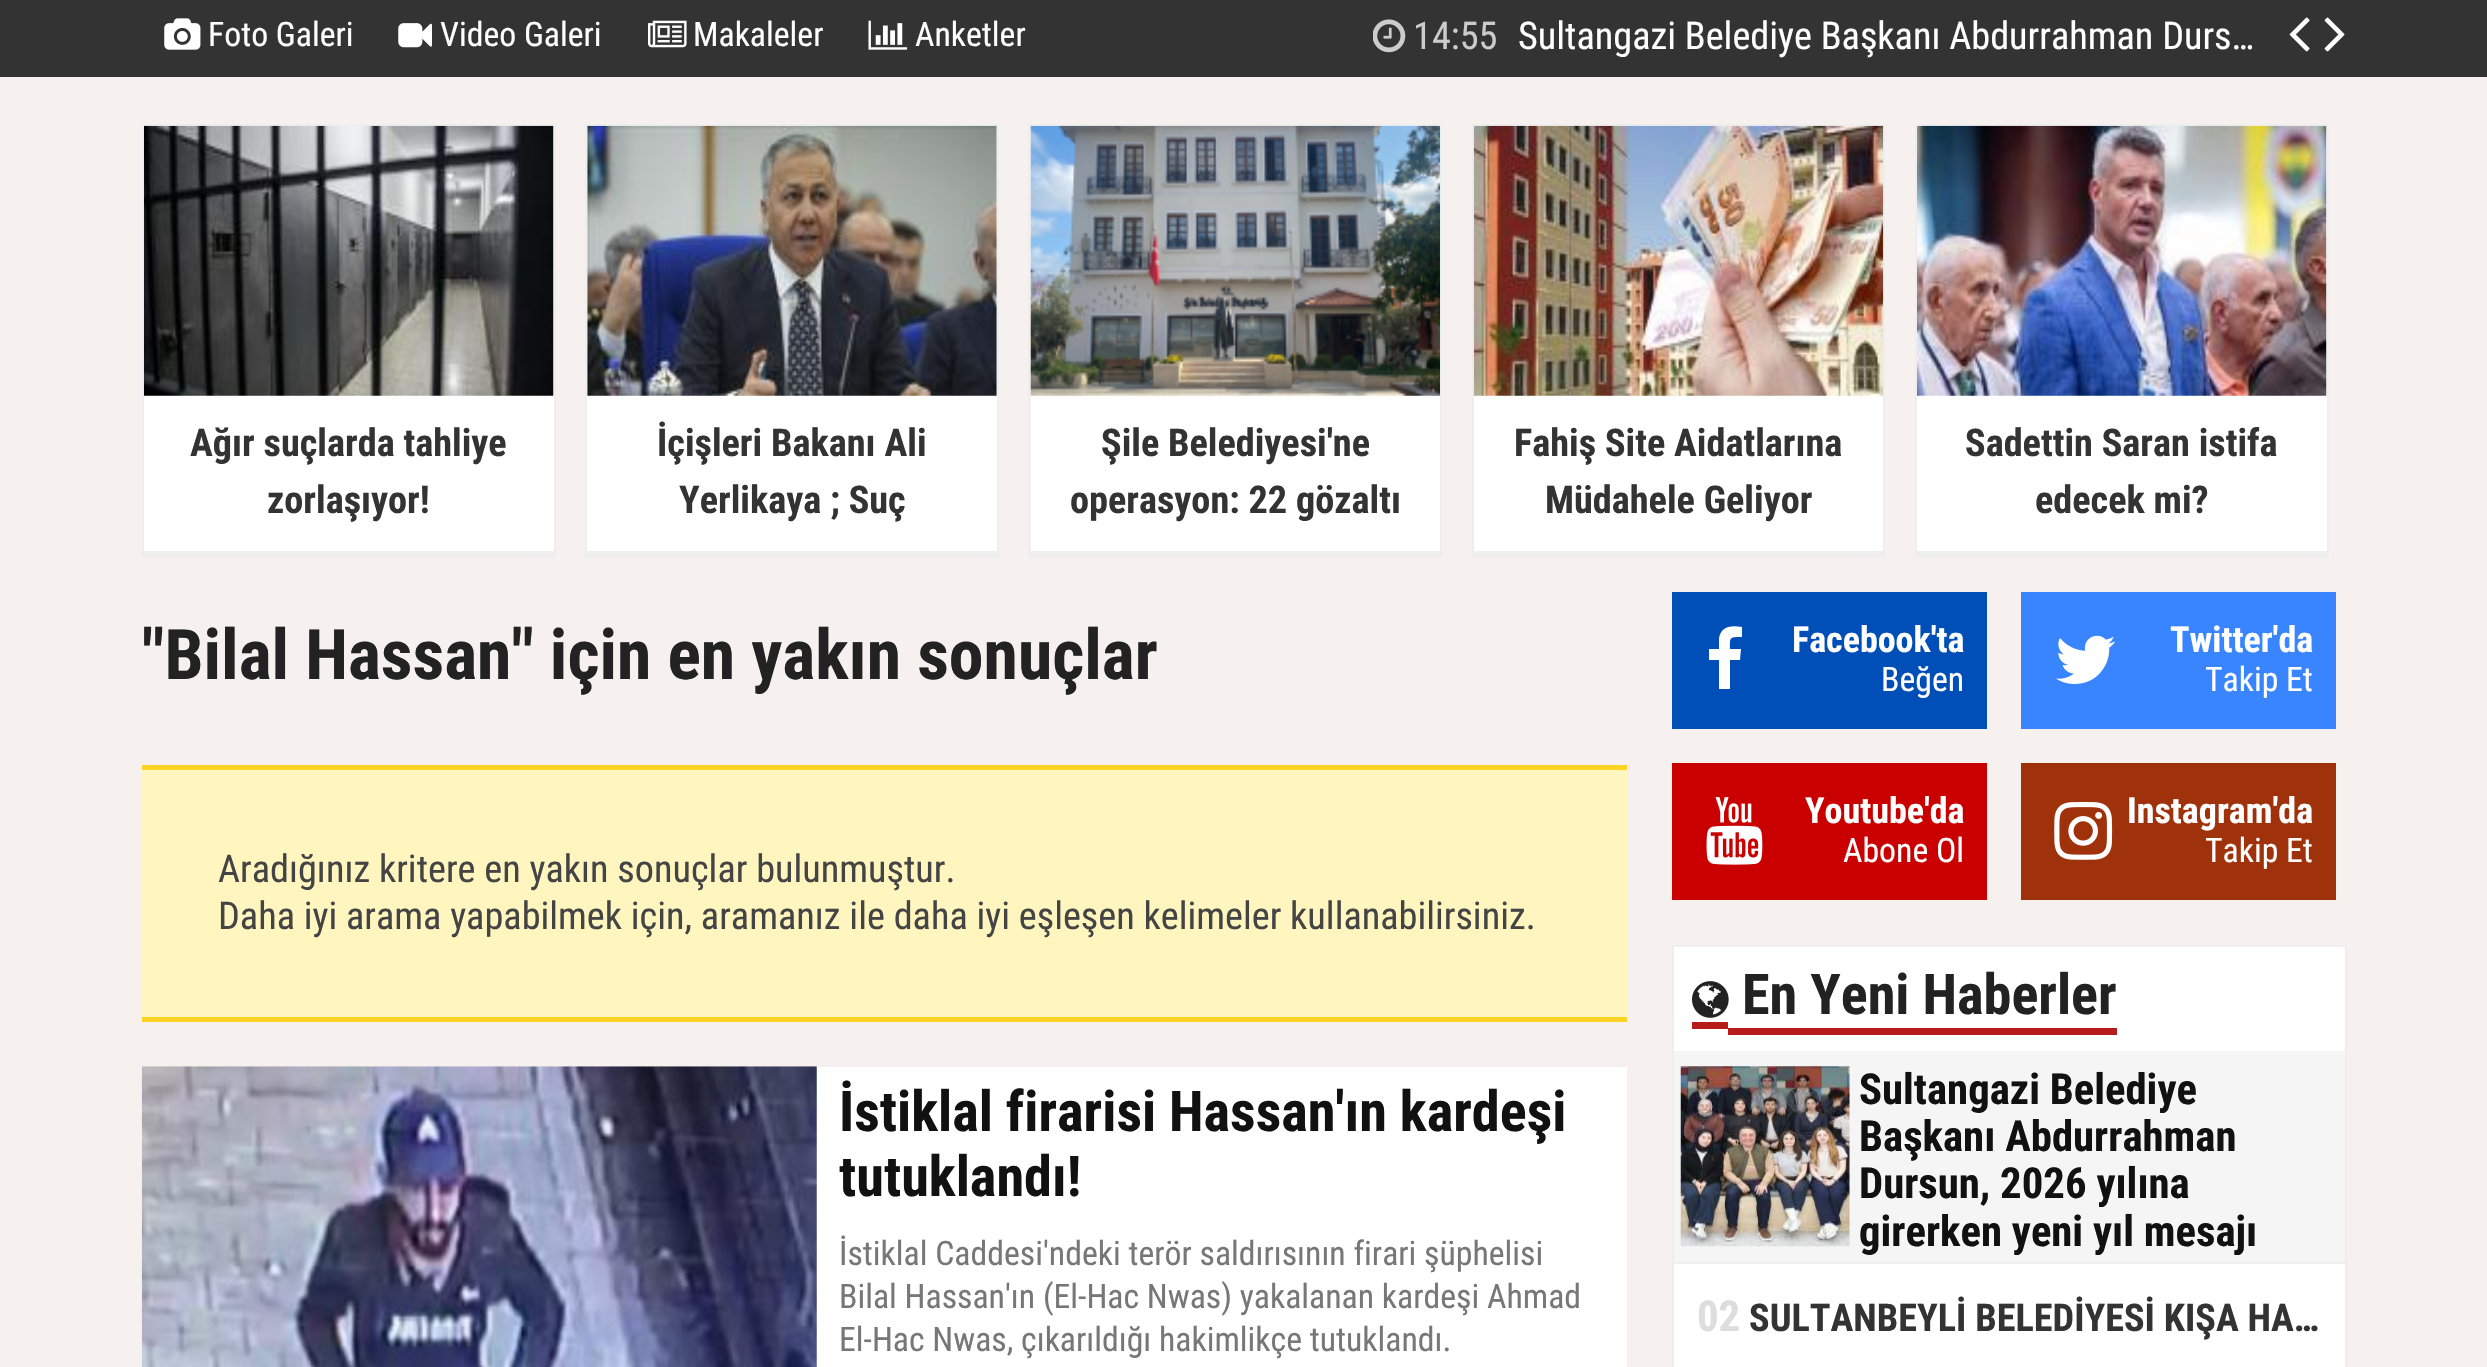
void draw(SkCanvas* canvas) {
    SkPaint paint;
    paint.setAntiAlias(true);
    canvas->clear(0xFFF6F1EF);
    paint.setColor(0xFF333333);
    canvas->drawRect(SkRect::MakeXYWH(0, 0, 2487, 77), paint);
    canvas->drawImageRect(SkImages::DeferredFromEncodedData(SkData::MakeFromFileName("img1.png")), SkRect::MakeXYWH(164, 18, 37, 32), SkSamplingOptions());
    SkFont font1(fontMgr->matchFamilyStyle("Roboto Condensed", SkFontStyle::Normal()), 33.75f);
    font1.setSubpixel(true);
    paint.setColor(0xFFFFFFFF);
    canvas->drawString("Foto Galeri", 208, 46, font1, paint);
    canvas->drawImageRect(SkImages::DeferredFromEncodedData(SkData::MakeFromFileName("img2.png")), SkRect::MakeXYWH(398, 23, 34, 25), SkSamplingOptions());
    canvas->drawString("Video Galeri", 440, 46, font1, paint);
    canvas->drawImageRect(SkImages::DeferredFromEncodedData(SkData::MakeFromFileName("img3.png")), SkRect::MakeXYWH(648, 20, 39, 28), SkSamplingOptions());
    canvas->drawString("Makaleler", 693, 46, font1, paint);
    canvas->drawImageRect(SkImages::DeferredFromEncodedData(SkData::MakeFromFileName("img4.png")), SkRect::MakeXYWH(868, 20, 40, 30), SkSamplingOptions());
    canvas->drawString("Anketler", 915, 46, font1, paint);
    canvas->drawImageRect(SkImages::DeferredFromEncodedData(SkData::MakeFromFileName("img5.png")), SkRect::MakeXYWH(1373, 19, 33, 34), SkSamplingOptions());
    SkFont font2(fontMgr->matchFamilyStyle("Roboto Condensed", SkFontStyle::Normal()), 38.25f);
    font2.setSubpixel(true);
    paint.setColor(0xFFCCCCCC);
    canvas->drawString("14:55", 1413, 49, font2, paint);
    paint.setColor(0xFFFFFFFF);
    canvas->drawString("Sultangazi Belediye Başkanı Abdurrahman Durs…", 1518, 49, font2, paint);
    canvas->drawImageRect(SkImages::DeferredFromEncodedData(SkData::MakeFromFileName("img6.png")), SkRect::MakeXYWH(2289, 17, 21, 35), SkSamplingOptions());
    canvas->drawImageRect(SkImages::DeferredFromEncodedData(SkData::MakeFromFileName("img7.png")), SkRect::MakeXYWH(2324, 17, 21, 35), SkSamplingOptions());
    canvas->drawRect(SkRect::MakeXYWH(144, 126, 410, 425), paint);
    paint.setColor(0xFFEEEEEE);
    canvas->drawRect(SkRect::MakeXYWH(142, 124, 414, 2), paint);
    canvas->drawRect(SkRect::MakeXYWH(554, 124, 2, 434), paint);
    canvas->drawRect(SkRect::MakeXYWH(142, 551, 414, 7), paint);
    canvas->drawRect(SkRect::MakeXYWH(142, 124, 2, 434), paint);
    canvas->drawImageRect(SkImages::DeferredFromEncodedData(SkData::MakeFromFileName("img8.png")), SkRect::MakeXYWH(144, 125, 410, 271), SkSamplingOptions());
    SkFont font3(fontMgr->matchFamilyStyle("Roboto Condensed", SkFontStyle::Bold()), 38.25f);
    font3.setSubpixel(true);
    paint.setColor(0xFF333333);
    canvas->drawString("Ağır suçlarda tahliye", 190, 456, font3, paint);
    canvas->drawString("zorlaşıyor!", 267, 513, font3, paint);
    paint.setColor(0xFFFFFFFF);
    canvas->drawRect(SkRect::MakeXYWH(587, 126, 410, 425), paint);
    paint.setColor(0xFFEEEEEE);
    canvas->drawRect(SkRect::MakeXYWH(585, 124, 414, 2), paint);
    canvas->drawRect(SkRect::MakeXYWH(997, 124, 2, 434), paint);
    canvas->drawRect(SkRect::MakeXYWH(585, 551, 414, 7), paint);
    canvas->drawRect(SkRect::MakeXYWH(585, 124, 2, 434), paint);
    canvas->drawImageRect(SkImages::DeferredFromEncodedData(SkData::MakeFromFileName("img9.png")), SkRect::MakeXYWH(587, 125, 410, 271), SkSamplingOptions());
    paint.setColor(0xFF333333);
    canvas->drawString("İçişleri Bakanı Ali", 657, 456, font3, paint);
    canvas->drawString("Yerlikaya ; Suç", 679, 513, font3, paint);
    paint.setColor(0xFFFFFFFF);
    canvas->drawRect(SkRect::MakeXYWH(1031, 395, 409, 156), paint);
    paint.setColor(0xFFEEEEEE);
    canvas->drawRect(SkRect::MakeXYWH(1028, 124, 414, 2), paint);
    canvas->drawRect(SkRect::MakeXYWH(1440, 124, 2, 434), paint);
    canvas->drawRect(SkRect::MakeXYWH(1028, 551, 414, 7), paint);
    canvas->drawRect(SkRect::MakeXYWH(1028, 124, 2, 434), paint);
    canvas->drawImageRect(SkImages::DeferredFromEncodedData(SkData::MakeFromFileName("img10.png")), SkRect::MakeXYWH(1030, 125, 410, 271), SkSamplingOptions());
    paint.setColor(0xFF333333);
    canvas->drawString("Şile Belediyesi'ne", 1101, 456, font3, paint);
    canvas->drawString("operasyon: 22 gözaltı", 1070, 513, font3, paint);
    paint.setColor(0xFFFFFFFF);
    canvas->drawRect(SkRect::MakeXYWH(1474, 395, 409, 156), paint);
    paint.setColor(0xFFEEEEEE);
    canvas->drawRect(SkRect::MakeXYWH(1472, 124, 414, 2), paint);
    canvas->drawRect(SkRect::MakeXYWH(1883, 124, 2, 434), paint);
    canvas->drawRect(SkRect::MakeXYWH(1472, 551, 414, 7), paint);
    canvas->drawRect(SkRect::MakeXYWH(1472, 124, 2, 434), paint);
    canvas->drawImageRect(SkImages::DeferredFromEncodedData(SkData::MakeFromFileName("img11.png")), SkRect::MakeXYWH(1473, 125, 411, 271), SkSamplingOptions());
    paint.setColor(0xFF333333);
    canvas->drawString("Fahiş Site Aidatlarına", 1514, 456, font3, paint);
    canvas->drawString("Müdahele Geliyor", 1545, 513, font3, paint);
    paint.setColor(0xFFFFFFFF);
    canvas->drawRect(SkRect::MakeXYWH(1917, 126, 410, 425), paint);
    paint.setColor(0xFFEEEEEE);
    canvas->drawRect(SkRect::MakeXYWH(1915, 124, 414, 2), paint);
    canvas->drawRect(SkRect::MakeXYWH(2327, 124, 2, 434), paint);
    canvas->drawRect(SkRect::MakeXYWH(1915, 551, 414, 7), paint);
    canvas->drawRect(SkRect::MakeXYWH(1915, 124, 2, 434), paint);
    canvas->drawImageRect(SkImages::DeferredFromEncodedData(SkData::MakeFromFileName("img12.png")), SkRect::MakeXYWH(1917, 125, 410, 271), SkSamplingOptions());
    paint.setColor(0xFF333333);
    canvas->drawString("Sadettin Saran istifa", 1965, 456, font3, paint);
    canvas->drawString("edecek mi?", 2035, 513, font3, paint);
    SkFont font4(fontMgr->matchFamilyStyle("Roboto Condensed", SkFontStyle::Bold()), 69.75f);
    font4.setSubpixel(true);
    paint.setColor(0xFF222222);
    canvas->drawString("\"Bilal Hassan\" için en yakın sonuçlar", 142, 679, font4, paint);
    paint.setColor(0xFFFFF6BF);
    canvas->drawRect(SkRect::MakeXYWH(142, 770, 1485, 247), paint);
    paint.setColor(0xFFFFD324);
    canvas->drawRect(SkRect::MakeXYWH(142, 765, 1485, 5), paint);
    canvas->drawRect(SkRect::MakeXYWH(142, 1017, 1485, 5), paint);
    paint.setColor(0xFF444444);
    canvas->drawString("Aradığınız kritere en yakın sonuçlar bulunmuştur.", 218, 882, font2, paint);
    canvas->drawString("Daha iyi arama yapabilmek için, aramanız ile daha iyi eşleşen kelimeler kullanabilirsiniz.", 218, 929, font2, paint);
    paint.setColor(0xFFFFFFFF);
    canvas->drawRect(SkRect::MakeXYWH(816, 1067, 811, 300), paint);
    canvas->drawImageRect(SkImages::DeferredFromEncodedData(SkData::MakeFromFileName("img13.png")), SkRect::MakeXYWH(141, 1066, 676, 301), SkSamplingOptions());
    SkFont font5(fontMgr->matchFamilyStyle("Roboto Condensed", SkFontStyle::Bold()), 56.25f);
    font5.setSubpixel(true);
    paint.setColor(0xFF111111);
    canvas->drawString("İstiklal firarisi Hassan'ın kardeşi", 839, 1131, font5, paint);
    canvas->drawString("tutuklandı!", 839, 1196, font5, paint);
    paint.setColor(0xFF777777);
    canvas->drawString("İstiklal Caddesi'ndeki terör saldırısının firari şüphelisi", 839, 1265, font1, paint);
    canvas->drawString("Bilal Hassan'ın (El-Hac Nwas) yakalanan kardeşi Ahmad", 839, 1308, font1, paint);
    canvas->drawString("El-Hac Nwas, çıkarıldığı hakimlikçe tutuklandı.", 839, 1351, font1, paint);
    paint.setColor(0xFF004EB8);
    canvas->drawRect(SkRect::MakeXYWH(1672, 592, 315, 137), paint);
    paint.setColor(0xFFFFFFFF);
    canvas->drawPath(SkPathBuilder().moveTo(1742, 627).lineTo(1742, 637).cubicTo(1729, 637, 1730, 637, 1730, 649).lineTo(1741, 649).lineTo(1740, 660).lineTo(1730, 660).lineTo(1730, 689).lineTo(1719, 689).lineTo(1719, 660).lineTo(1709, 660).lineTo(1709, 649).lineTo(1719, 649).lineTo(1719, 638).cubicTo(1721, 626, 1732, 625, 1742, 627).close().detach(), paint);
    SkFont font6(fontMgr->matchFamilyStyle("Roboto Condensed", SkFontStyle::Bold()), 36);
    font6.setSubpixel(true);
    canvas->drawString("Facebook'ta", 1792, 652, font6, paint);
    canvas->drawString("Beğen", 1881, 691, font1, paint);
    paint.setColor(0xFF3985FF);
    canvas->drawRect(SkRect::MakeXYWH(2021, 592, 315, 137), paint);
    canvas->drawImageRect(SkImages::DeferredFromEncodedData(SkData::MakeFromFileName("img14.png")), SkRect::MakeXYWH(2056, 635, 60, 49), SkSamplingOptions());
    paint.setColor(0xFFFFFFFF);
    canvas->drawString("Twitter'da", 2170, 652, font6, paint);
    canvas->drawString("Takip Et", 2205, 691, font1, paint);
    paint.setColor(0xFFCA0000);
    canvas->drawRect(SkRect::MakeXYWH(1672, 763, 315, 137), paint);
    canvas->drawImageRect(SkImages::DeferredFromEncodedData(SkData::MakeFromFileName("img15.png")), SkRect::MakeXYWH(1706, 797, 57, 68), SkSamplingOptions());
    paint.setColor(0xFFFFFFFF);
    canvas->drawString("Youtube'da", 1805, 823, font6, paint);
    canvas->drawString("Abone Ol", 1843, 862, font1, paint);
    paint.setColor(0xFF9F310B);
    canvas->drawRect(SkRect::MakeXYWH(2021, 763, 315, 137), paint);
    canvas->drawImageRect(SkImages::DeferredFromEncodedData(SkData::MakeFromFileName("img16.png")), SkRect::MakeXYWH(2054, 802, 59, 58), SkSamplingOptions());
    paint.setColor(0xFFFFFFFF);
    canvas->drawString("Instagram'da", 2127, 823, font6, paint);
    canvas->drawString("Takip Et", 2205, 862, font1, paint);
    canvas->drawRect(SkRect::MakeXYWH(1674, 947, 671, 420), paint);
    paint.setColor(0xFFEEEEEE);
    canvas->drawRect(SkRect::MakeXYWH(1672, 945, 675, 2), paint);
    canvas->drawRect(SkRect::MakeXYWH(2345, 945, 2, 422), paint);
    canvas->drawRect(SkRect::MakeXYWH(1672, 945, 2, 422), paint);
    paint.setColor(0xFFB71C1C);
    canvas->drawRect(SkRect::MakeXYWH(1692, 1022, 36, 7), paint);
    canvas->drawRect(SkRect::MakeXYWH(1728, 1028, 389, 7), paint);
    canvas->drawImageRect(SkImages::DeferredFromEncodedData(SkData::MakeFromFileName("img17.png")), SkRect::MakeXYWH(1692, 981, 37, 37), SkSamplingOptions());
    paint.setColor(0xFF222222);
    canvas->drawString("En Yeni Haberler", 1742, 1014, font5, paint);
    paint.setColor(0xFFF0F0F0);
    canvas->drawRect(SkRect::MakeXYWH(1674, 1262, 671, 2), paint);
    paint.setColor(0xFFF5F5F5);
    canvas->drawRect(SkRect::MakeXYWH(1674, 1051, 671, 211), paint);
    canvas->drawImageRect(SkImages::DeferredFromEncodedData(SkData::MakeFromFileName("img18.png")), SkRect::MakeXYWH(1680, 1066, 170, 181), SkSamplingOptions());
    SkFont font7(fontMgr->matchFamilyStyle("Roboto Condensed", SkFontStyle::Bold()), 42.75f);
    font7.setSubpixel(true);
    paint.setColor(0xFF111111);
    canvas->drawString("Sultangazi Belediye", 1859, 1104, font7, paint);
    canvas->drawString("Başkanı Abdurrahman", 1859, 1151, font7, paint);
    canvas->drawString("Dursun, 2026 yılına", 1859, 1198, font7, paint);
    canvas->drawString("girerken yeni yıl mesajı", 1859, 1246, font7, paint);
    paint.setColor(0xFFDDDDDD);
    canvas->drawString("02", 1697, 1331, font7, paint);
    paint.setColor(0xFF333333);
    canvas->drawString("SULTANBEYLİ BELEDİYESİ KIŞA HA…", 1749, 1331, font3, paint);
}
